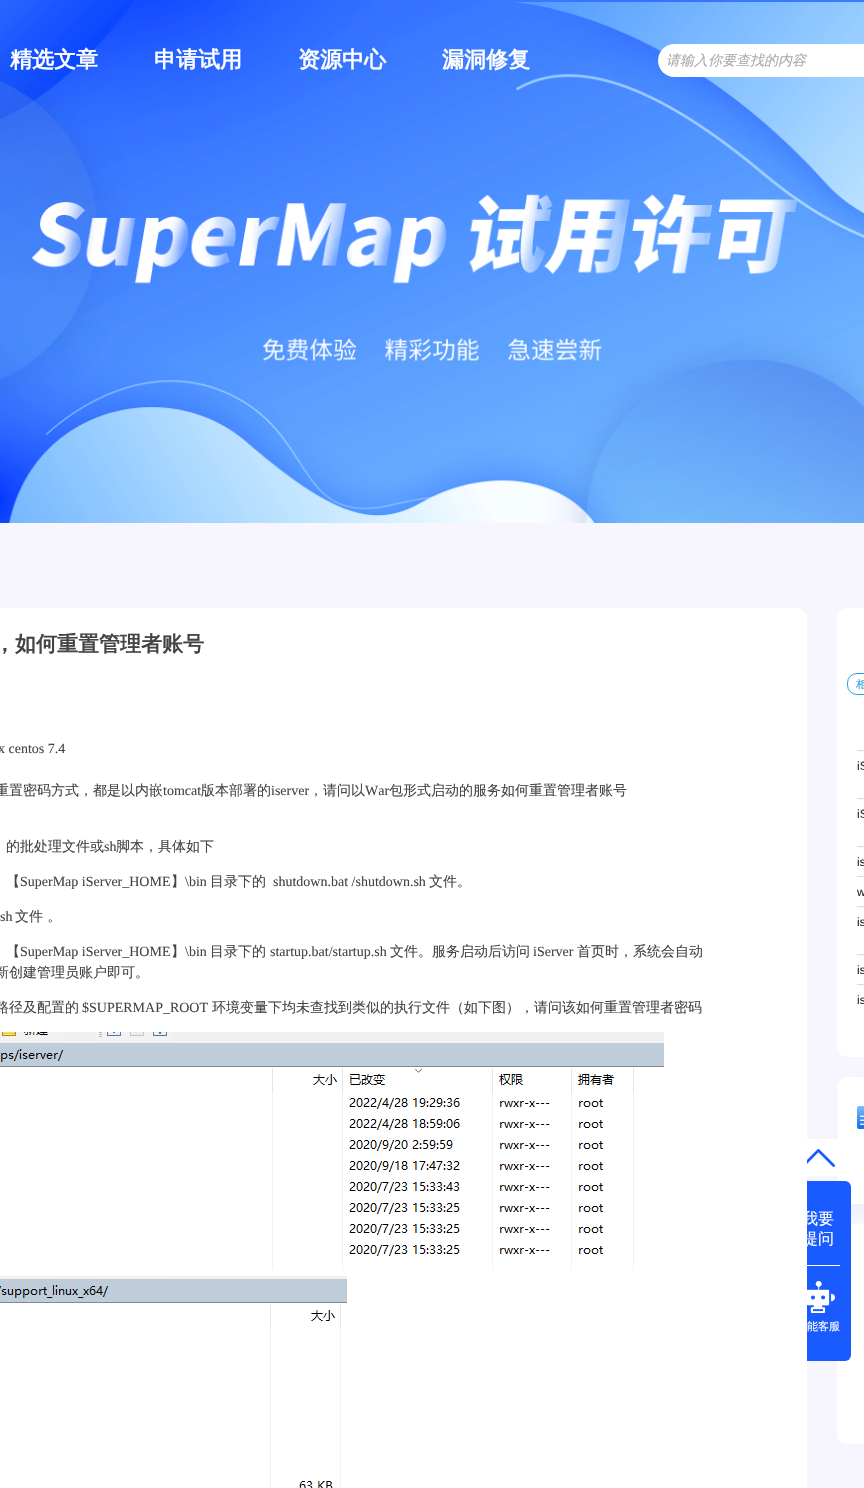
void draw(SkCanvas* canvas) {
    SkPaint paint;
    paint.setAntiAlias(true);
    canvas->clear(0xFFF7F6FE);
    canvas->drawImageRect(SkImages::DeferredFromEncodedData(SkData::MakeFromFileName("img1.png")), SkRect::MakeXYWH(0, 0, 864, 523), SkSamplingOptions());
    SkFont font1(fontMgr->matchFamilyStyle("WenQuanYi Zen Hei", SkFontStyle::Bold()), 22);
    font1.setSubpixel(true);
    paint.setColor(0xFFFFFFFF);
    canvas->drawString("精选文章", 10, 67, font1, paint);
    canvas->drawString("申请试用", 154, 67, font1, paint);
    canvas->drawString("资源中心", 298, 67, font1, paint);
    canvas->drawString("漏洞修复", 442, 67, font1, paint);
    canvas->drawRoundRect(SkRect::MakeXYWH(658, 44, 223, 33), 16.5f, 16.5f, paint);
    SkFont font2(fontMgr->matchFamilyStyle("WenQuanYi Zen Hei", SkFontStyle(500, SkFontStyle::kNormal_Width, SkFontStyle::kItalic_Slant)), 14);
    font2.setSubpixel(true);
    paint.setColor(0xFFAAAAAA);
    canvas->drawString("请输入你要查找的内容", 666, 65, font2, paint);
    paint.setColor(0x0D1E59FF);
    paint.setMaskFilter(SkMaskFilter::MakeBlur(kNormal_SkBlurStyle, 8));
    canvas->drawRoundRect(SkRect::MakeXYWH(842, 1084, 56, 127), 10, 10, paint);
    paint.setMaskFilter(nullptr);
    paint.setColor(0xFFFFFFFF);
    canvas->drawRoundRect(SkRect::MakeXYWH(837, 1077, 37, 127), 10, 10, paint);
    canvas->drawRoundRect(SkRect::MakeXYWH(785, 1139, 67, 37), 8, 8, paint);
    canvas->drawRoundRect(SkRect::MakeXYWH(837, 1224, 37, 220), 10, 10, paint);
    paint.setColor(0xFF1A5BFF);
    canvas->drawRoundRect(SkRect::MakeXYWH(785, 1181, 66, 180), 6, 6, paint);
    paint.setColor(0xFFFFFFFF);
    canvas->drawRoundRect(SkRect::MakeXYWH(797, 1265, 43, 1), 0.5f, 0.5f, paint);
    canvas->drawRoundRect(SkRect::MakeXYWH(-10, 608, 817, 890), 10, 10, paint);
    SkFont font3(fontMgr->matchFamilyStyle("WenQuanYi Zen Hei", SkFontStyle::Bold()), 21);
    font3.setSubpixel(true);
    paint.setColor(0xFF444444);
    canvas->drawString("，如何重置管理者账号", -6, 651, font3, paint);
    SkFont font4(fontMgr->matchFamilyStyle("Liberation Serif", SkFontStyle::Normal()), 14);
    font4.setSubpixel(true);
    canvas->drawString("x centos 7.4", -2, 753, font4, paint);
    SkFont font5(fontMgr->matchFamilyStyle("WenQuanYi Zen Hei", SkFontStyle(500, SkFontStyle::kNormal_Width, SkFontStyle::kUpright_Slant)), 14);
    font5.setSubpixel(true);
    canvas->drawString("重置密码方式，都是以内嵌", -5, 795, font5, paint);
    canvas->drawString("tomcat", 163, 795, font4, paint);
    canvas->drawString("版本部署的", 201, 795, font5, paint);
    canvas->drawString("iserver", 271, 795, font4, paint);
    canvas->drawString("，请问以", 309, 795, font5, paint);
    canvas->drawString("War", 365, 795, font4, paint);
    canvas->drawString("包形式启动的服务如何重置管理者账号", 389, 795, font5, paint);
    canvas->drawString("的批处理文件或", 6, 851, font5, paint);
    canvas->drawString("sh", 104, 851, font4, paint);
    canvas->drawString("脚本，具体如下", 116, 851, font5, paint);
    canvas->drawString("【", 6, 886, font5, paint);
    canvas->drawString("SuperMap iServer_HOME", 20, 886, font4, paint);
    canvas->drawString("】", 171, 886, font5, paint);
    canvas->drawString("\\bin", 185, 886, font4, paint);
    canvas->drawString("目录下的", 210, 886, font5, paint);
    canvas->drawString("shutdown.bat /shutdown.sh", 273, 886, font4, paint);
    canvas->drawString("文件。", 429, 886, font5, paint);
    canvas->drawString("sh", 0, 921, font4, paint);
    canvas->drawString("文件 。", 15, 921, font5, paint);
    canvas->drawString("【", 6, 956, font5, paint);
    canvas->drawString("SuperMap iServer_HOME", 20, 956, font4, paint);
    canvas->drawString("】", 171, 956, font5, paint);
    canvas->drawString("\\bin", 185, 956, font4, paint);
    canvas->drawString("目录下的", 210, 956, font5, paint);
    canvas->drawString("startup.bat/startup.sh", 270, 956, font4, paint);
    canvas->drawString("文件。服务启动后访问", 390, 956, font5, paint);
    canvas->drawString("iServer", 533, 956, font4, paint);
    canvas->drawString("首页时，系统会自动", 577, 956, font5, paint);
    canvas->drawString("新创建管理员账户即可。", -5, 977, font5, paint);
    canvas->drawString("路径及配置的", -5, 1012, font5, paint);
    canvas->drawString("$SUPERMAP_ROOT", 82, 1012, font4, paint);
    canvas->drawString("环境变量下均未查找到类似的执行文件（如下图），请问该如何重置管理者密码", 212, 1012, font5, paint);
    canvas->drawImageRect(SkImages::DeferredFromEncodedData(SkData::MakeFromFileName("img2.png")), SkRect::MakeXYWH(0, 1032, 664, 238), SkSamplingOptions());
    canvas->drawImageRect(SkImages::DeferredFromEncodedData(SkData::MakeFromFileName("img3.png")), SkRect::MakeXYWH(0, 1276, 347, 212), SkSamplingOptions());
    paint.setColor(0xFFFFFFFF);
    canvas->drawRoundRect(SkRect::MakeXYWH(837, 608, 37, 449), 10, 10, paint);
    paint.setStyle(SkPaint::kStroke_Style);
    paint.setStrokeWidth(1);
    paint.setColor(0xFF26A1DA);
    canvas->drawRoundRect(SkRect::MakeXYWH(847.5f, 673.5f, 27, 21), 9.5f, 9.5f, paint);
    SkFont font6(fontMgr->matchFamilyStyle("WenQuanYi Zen Hei", SkFontStyle(500, SkFontStyle::kNormal_Width, SkFontStyle::kUpright_Slant)), 11);
    font6.setSubpixel(true);
    paint.setStyle(SkPaint::kFill_Style);
    canvas->drawString("相", 856, 688, font6, paint);
    paint.setColor(0xFFDDDDDD);
    canvas->drawRect(SkRect::MakeXYWH(857, 750, 7, 1), paint);
    paint.setColor(0xFFFAFAFA);
    canvas->drawRect(SkRect::MakeXYWH(857, 751, 7, 1), paint);
    paint.setColor(0xFFDDDDDD);
    canvas->drawRect(SkRect::MakeXYWH(857, 798, 7, 1), paint);
    SkFont font7(fontMgr->matchFamilyStyle("Liberation Sans", SkFontStyle::Normal()), 12);
    font7.setSubpixel(true);
    paint.setColor(0xFF282828);
    canvas->drawString("iS", 857, 770, font7, paint);
    paint.setColor(0xFFFAFAFA);
    canvas->drawRect(SkRect::MakeXYWH(857, 799, 7, 1), paint);
    paint.setColor(0xFFDDDDDD);
    canvas->drawRect(SkRect::MakeXYWH(857, 846, 7, 1), paint);
    paint.setColor(0xFF282828);
    canvas->drawString("iS", 857, 818, font7, paint);
    paint.setColor(0xFFFAFAFA);
    canvas->drawRect(SkRect::MakeXYWH(857, 847, 7, 1), paint);
    paint.setColor(0xFFDDDDDD);
    canvas->drawRect(SkRect::MakeXYWH(857, 876, 7, 1), paint);
    paint.setColor(0xFF282828);
    canvas->drawString("is", 857, 866, font7, paint);
    paint.setColor(0xFFFAFAFA);
    canvas->drawRect(SkRect::MakeXYWH(857, 877, 7, 1), paint);
    paint.setColor(0xFFDDDDDD);
    canvas->drawRect(SkRect::MakeXYWH(857, 906, 7, 1), paint);
    paint.setColor(0xFF282828);
    canvas->drawString("w", 857, 896, font7, paint);
    paint.setColor(0xFFFAFAFA);
    canvas->drawRect(SkRect::MakeXYWH(857, 907, 7, 1), paint);
    paint.setColor(0xFFDDDDDD);
    canvas->drawRect(SkRect::MakeXYWH(857, 954, 7, 1), paint);
    paint.setColor(0xFF282828);
    canvas->drawString("is", 857, 926, font7, paint);
    paint.setColor(0xFFFAFAFA);
    canvas->drawRect(SkRect::MakeXYWH(857, 955, 7, 1), paint);
    paint.setColor(0xFFDDDDDD);
    canvas->drawRect(SkRect::MakeXYWH(857, 984, 7, 1), paint);
    paint.setColor(0xFF282828);
    canvas->drawString("is", 857, 974, font7, paint);
    paint.setColor(0xFFFAFAFA);
    canvas->drawRect(SkRect::MakeXYWH(857, 985, 7, 1), paint);
    paint.setColor(0xFF282828);
    canvas->drawString("is", 857, 1004, font7, paint);
    canvas->drawImageRect(SkImages::DeferredFromEncodedData(SkData::MakeFromFileName("img4.png")), SkRect::MakeXYWH(857, 1106, 7, 23), SkSamplingOptions());
    canvas->drawImageRect(SkImages::DeferredFromEncodedData(SkData::MakeFromFileName("img5.png")), SkRect::MakeXYWH(807, 1149, 28, 18), SkSamplingOptions());
    SkFont font8(fontMgr->matchFamilyStyle("WenQuanYi Zen Hei", SkFontStyle(500, SkFontStyle::kNormal_Width, SkFontStyle::kUpright_Slant)), 16);
    font8.setSubpixel(true);
    paint.setColor(0xFFFFFFFF);
    canvas->drawString("我要", 802, 1224, font8, paint);
    canvas->drawString("提问", 802, 1244, font8, paint);
    canvas->drawImageRect(SkImages::DeferredFromEncodedData(SkData::MakeFromFileName("img6.png")), SkRect::MakeXYWH(807, 1281, 28, 32), SkSamplingOptions());
    canvas->drawString("能客服", 807, 1330, font6, paint);
}
